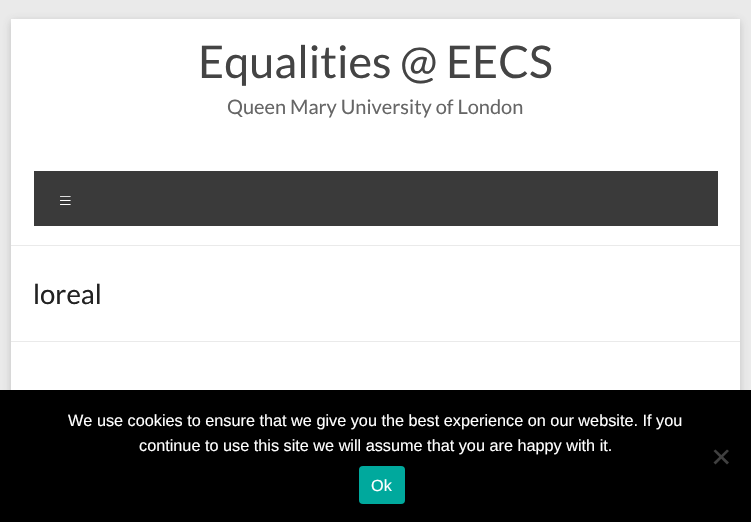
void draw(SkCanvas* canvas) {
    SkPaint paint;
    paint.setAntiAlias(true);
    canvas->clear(0xFFEAEAEA);
    paint.setColor(0x4D646464);
    paint.setMaskFilter(SkMaskFilter::MakeBlur(kNormal_SkBlurStyle, 4));
    canvas->drawRect(SkRect::MakeXYWH(11, 21, 729, 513), paint);
    paint.setMaskFilter(nullptr);
    paint.setColor(0xFFFFFFFF);
    canvas->drawRect(SkRect::MakeXYWH(11, 19, 729, 371), paint);
    paint.setColor(0xFFEAEAEA);
    canvas->drawRect(SkRect::MakeXYWH(11, 245, 729, 1), paint);
    SkFont font1(fontMgr->matchFamilyStyle("Lato", SkFontStyle::Normal()), 45);
    font1.setSubpixel(true);
    paint.setColor(0xFF444444);
    canvas->drawString("Equalities @ EECS", 198, 78, font1, paint);
    SkFont font2(fontMgr->matchFamilyStyle("Lato", SkFontStyle::Normal()), 20);
    font2.setSubpixel(true);
    paint.setColor(0xFF666666);
    canvas->drawString("Queen Mary University of London", 227, 114, font2, paint);
    paint.setColor(0xFF3A3A3A);
    canvas->drawRect(SkRect::MakeXYWH(34, 171, 684, 55), paint);
    SkFont font3(fontMgr->matchFamilyStyle("Lato", SkFontStyle(300, SkFontStyle::kNormal_Width, SkFontStyle::kUpright_Slant)), 25);
    font3.setSubpixel(true);
    paint.setColor(0xFFFFFFFF);
    canvas->drawString("≡", 58, 209, font3, paint);
    paint.setColor(0xFFEAEAEA);
    canvas->drawRect(SkRect::MakeXYWH(11, 341, 729, 1), paint);
    SkFont font4(fontMgr->matchFamilyStyle("Lato", SkFontStyle::Normal()), 27.5f);
    font4.setSubpixel(true);
    paint.setColor(0xFF222222);
    canvas->drawString("loreal", 33, 304, font4, paint);
    paint.setColor(0xFF000000);
    canvas->drawRect(SkRect::MakeXYWH(0, 390, 751, 132), paint);
    SkFont font5(fontMgr->matchFamilyStyle("Liberation Sans", SkFontStyle::Normal()), 16.25f);
    font5.setSubpixel(true);
    paint.setColor(0xFFFFFFFF);
    canvas->drawString("We use cookies to ensure that we give you the best experience on our website. If you", 68, 426, font5, paint);
    canvas->drawString("continue to use this site we will assume that you are happy with it.", 139, 451, font5, paint);
    paint.setColor(0xFF404040);
    canvas->drawPath(SkPathBuilder().moveTo(727, 449.5f).lineTo(729, 451).lineTo(715.5f, 464.5f).lineTo(713.5f, 462.5f).close().detach(), paint);
    canvas->drawPath(SkPathBuilder().moveTo(713.5f, 451).lineTo(715.5f, 449.5f).lineTo(729, 462.5f).lineTo(727, 464.5f).close().detach(), paint);
    paint.setColor(0xFF00A99D);
    canvas->drawRoundRect(SkRect::MakeXYWH(359, 466, 46, 38), 4, 4, paint);
    paint.setColor(0xFFFFFFFF);
    canvas->drawString("Ok", 371, 491, font5, paint);
}
